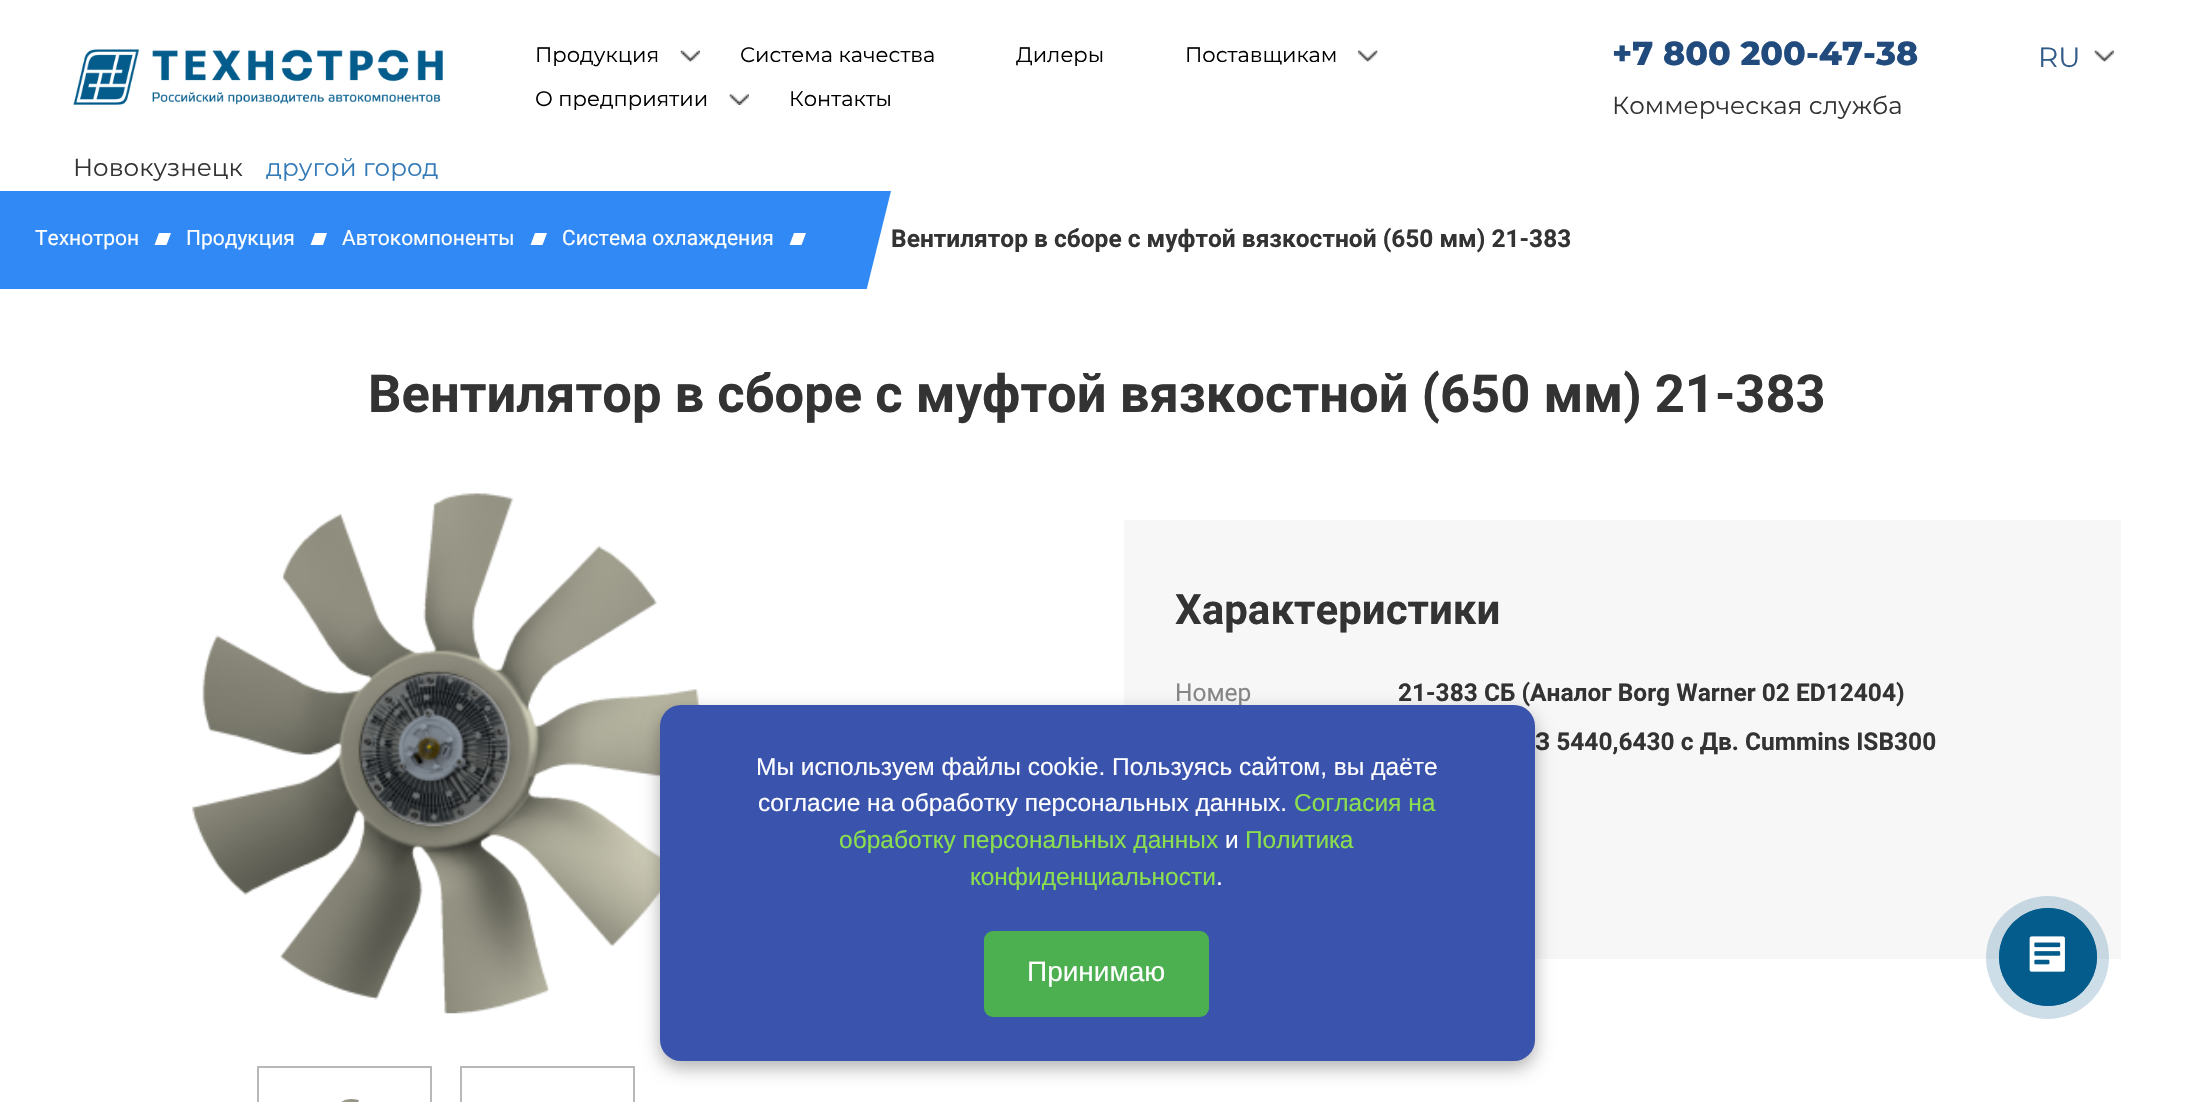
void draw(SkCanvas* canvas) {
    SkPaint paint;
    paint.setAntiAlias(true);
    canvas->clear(0xFFFFFFFF);
    canvas->drawImageRect(SkImages::DeferredFromEncodedData(SkData::MakeFromFileName("img1.png")), SkRect::MakeXYWH(73, 49, 370, 56), SkSamplingOptions());
    SkFont font1(fontMgr->matchFamilyStyle("Montserrat", SkFontStyle::Normal()), 21);
    font1.setSubpixel(true);
    paint.setColor(0xFF000000);
    canvas->drawString("Продукция", 535, 62, font1, paint);
    canvas->drawImageRect(SkImages::DeferredFromEncodedData(SkData::MakeFromFileName("img2.png")), SkRect::MakeXYWH(680, 50, 20, 12), SkSamplingOptions());
    canvas->drawString("Система качества", 740, 62, font1, paint);
    canvas->drawString("Дилеры", 1016, 62, font1, paint);
    canvas->drawString("Поставщикам", 1185, 62, font1, paint);
    canvas->drawImageRect(SkImages::DeferredFromEncodedData(SkData::MakeFromFileName("img3.png")), SkRect::MakeXYWH(1358, 50, 20, 12), SkSamplingOptions());
    canvas->drawString("О предприятии", 535, 106, font1, paint);
    canvas->drawImageRect(SkImages::DeferredFromEncodedData(SkData::MakeFromFileName("img4.png")), SkRect::MakeXYWH(729, 94, 20, 11), SkSamplingOptions());
    canvas->drawString("Контакты", 789, 106, font1, paint);
    SkFont font2(fontMgr->matchFamilyStyle("Montserrat", SkFontStyle(800, SkFontStyle::kNormal_Width, SkFontStyle::kUpright_Slant)), 33.25f);
    font2.setSubpixel(true);
    paint.setColor(0xFF214B7D);
    canvas->drawString("+7 800 200-47-38", 1612, 65, font2, paint);
    SkFont font3(fontMgr->matchFamilyStyle("Montserrat", SkFontStyle::Normal()), 24.5f);
    font3.setSubpixel(true);
    paint.setColor(0xFF333333);
    canvas->drawString("Коммерческая служба", 1612, 114, font3, paint);
    SkFont font4(fontMgr->matchFamilyStyle("Montserrat", SkFontStyle::Normal()), 28);
    font4.setSubpixel(true);
    paint.setColor(0xFF335B88);
    canvas->drawString("RU", 2038, 67, font4, paint);
    canvas->drawImageRect(SkImages::DeferredFromEncodedData(SkData::MakeFromFileName("img2.png")), SkRect::MakeXYWH(2094, 50, 20, 12), SkSamplingOptions());
    paint.setColor(0xFF333333);
    canvas->drawString("Новокузнецк", 73, 176, font3, paint);
    paint.setColor(0xFF337AB7);
    canvas->drawString("другой город", 266, 176, font3, paint);
    paint.setColor(0xFF3089F4);
    canvas->drawRect(SkRect::MakeXYWH(0, 191, 891, 98), paint);
    SkFont font5(fontMgr->matchFamilyStyle("Roboto", SkFontStyle::Normal()), 21);
    font5.setSubpixel(true);
    paint.setColor(0xFFFFFFFF);
    canvas->drawString("Технотрон", 35, 245, font5, paint);
    canvas->drawPath(SkPathBuilder().moveTo(159, 233).lineTo(171, 233).lineTo(166.5f, 245).lineTo(154.5f, 245).close().detach(), paint);
    canvas->drawString("Продукция", 186, 245, font5, paint);
    canvas->drawPath(SkPathBuilder().moveTo(315, 233).lineTo(327, 233).lineTo(323, 245).lineTo(310.5f, 245).close().detach(), paint);
    canvas->drawString("Автокомпоненты", 342, 245, font5, paint);
    canvas->drawPath(SkPathBuilder().moveTo(535, 233).lineTo(547, 233).lineTo(542.5f, 245).lineTo(530.5f, 245).close().detach(), paint);
    canvas->drawString("Система охлаждения", 562, 245, font5, paint);
    canvas->drawPath(SkPathBuilder().moveTo(794, 233).lineTo(806, 233).lineTo(801.5f, 245).lineTo(789.5f, 245).close().detach(), paint);
    canvas->drawPath(SkPathBuilder().moveTo(892, 292).lineTo(866, 292).lineTo(892, 187).close().detach(), paint);
    SkFont font6(fontMgr->matchFamilyStyle("Roboto", SkFontStyle::Bold()), 24.5f);
    font6.setSubpixel(true);
    paint.setColor(0xFF333333);
    canvas->drawString("Вентилятор в сборе с муфтой вязкостной (650 мм) 21-383", 891, 247, font6, paint);
    SkFont font7(fontMgr->matchFamilyStyle("Roboto", SkFontStyle::Bold()), 52.5f);
    font7.setSubpixel(true);
    canvas->drawString("Вентилятор в сборе с муфтой вязкостной (650 мм) 21-383", 368, 412, font7, paint);
    canvas->drawImageRect(SkImages::DeferredFromEncodedData(SkData::MakeFromFileName("img5.png")), SkRect::MakeXYWH(192, 493, 508, 521), SkSamplingOptions());
    paint.setStyle(SkPaint::kStroke_Style);
    paint.setStrokeWidth(2);
    paint.setColor(0xFFB8B8B8);
    canvas->drawRect(SkRect::MakeXYWH(258, 1067, 173, 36), paint);
    canvas->drawImageRect(SkImages::DeferredFromEncodedData(SkData::MakeFromFileName("img6.png")), SkRect::MakeXYWH(342, 1099, 17, 3), SkSamplingOptions());
    canvas->drawRect(SkRect::MakeXYWH(461, 1067, 173, 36), paint);
    paint.setStyle(SkPaint::kFill_Style);
    paint.setColor(0xFFF7F7F7);
    canvas->drawRect(SkRect::MakeXYWH(1124, 520, 997, 439), paint);
    SkFont font8(fontMgr->matchFamilyStyle("Roboto", SkFontStyle::Bold()), 42);
    font8.setSubpixel(true);
    paint.setColor(0xFF333333);
    canvas->drawString("Характеристики", 1175, 624, font8, paint);
    SkFont font9(fontMgr->matchFamilyStyle("Roboto", SkFontStyle::Normal()), 24.5f);
    font9.setSubpixel(true);
    paint.setColor(0xFF878787);
    canvas->drawString("Номер", 1175, 701, font9, paint);
    paint.setColor(0xFF333333);
    canvas->drawString("21-383 СБ (Аналог Borg Warner 02 ED12404)", 1398, 701, font6, paint);
    canvas->drawString("З 5440,6430 с Дв. Cummins ISB300", 1535, 750, font6, paint);
    paint.setColor(0x4D000000);
    paint.setMaskFilter(SkMaskFilter::MakeBlur(kNormal_SkBlurStyle, 9));
    canvas->drawRoundRect(SkRect::MakeXYWH(660, 712, 875, 356), 21, 21, paint);
    paint.setMaskFilter(nullptr);
    paint.setColor(0xFF3A53AD);
    canvas->drawRoundRect(SkRect::MakeXYWH(660, 705, 875, 356), 21, 21, paint);
    SkFont font10(fontMgr->matchFamilyStyle("Liberation Sans", SkFontStyle::Normal()), 24.5f);
    font10.setSubpixel(true);
    paint.setColor(0xFFFFFFFF);
    canvas->drawString("Мы используем файлы cookie. Пользуясь сайтом, вы даёте", 756, 775, font10, paint);
    canvas->drawString("согласие на обработку персональных данных.", 758, 811, font10, paint);
    paint.setColor(0xFF8BDF4E);
    canvas->drawString("Согласия на", 1294, 811, font10, paint);
    canvas->drawString("обработку персональных данных", 839, 848, font10, paint);
    paint.setColor(0xFFFFFFFF);
    canvas->drawString("и", 1225, 848, font10, paint);
    paint.setColor(0xFF8BDF4E);
    canvas->drawString("Политика", 1245, 848, font10, paint);
    canvas->drawString("конфиденциальности", 970, 885, font10, paint);
    paint.setColor(0xFFFFFFFF);
    canvas->drawString(".", 1216, 885, font10, paint);
    paint.setColor(0xFF4CAF50);
    canvas->drawRoundRect(SkRect::MakeXYWH(984, 931, 225, 86), 9, 9, paint);
    SkFont font11(fontMgr->matchFamilyStyle("Liberation Sans", SkFontStyle::Normal()), 28);
    font11.setSubpixel(true);
    paint.setColor(0xFFFFFFFF);
    canvas->drawString("Принимаю", 1027, 981, font11, paint);
    paint.setColor(0x33045C8C);
    canvas->drawCircle(2047.5f, 957.5f, 61.5f, paint);
    paint.setStyle(SkPaint::kStroke_Style);
    paint.setStrokeWidth(1);
    paint.setColor(0xFF045C8C);
    canvas->drawCircle(2048, 957, 48.5f, paint);
    paint.setStyle(SkPaint::kFill_Style);
    canvas->drawCircle(2048, 957, 49, paint);
    canvas->drawImageRect(SkImages::DeferredFromEncodedData(SkData::MakeFromFileName("img7.png")), SkRect::MakeXYWH(2029, 936, 36, 36), SkSamplingOptions());
}
